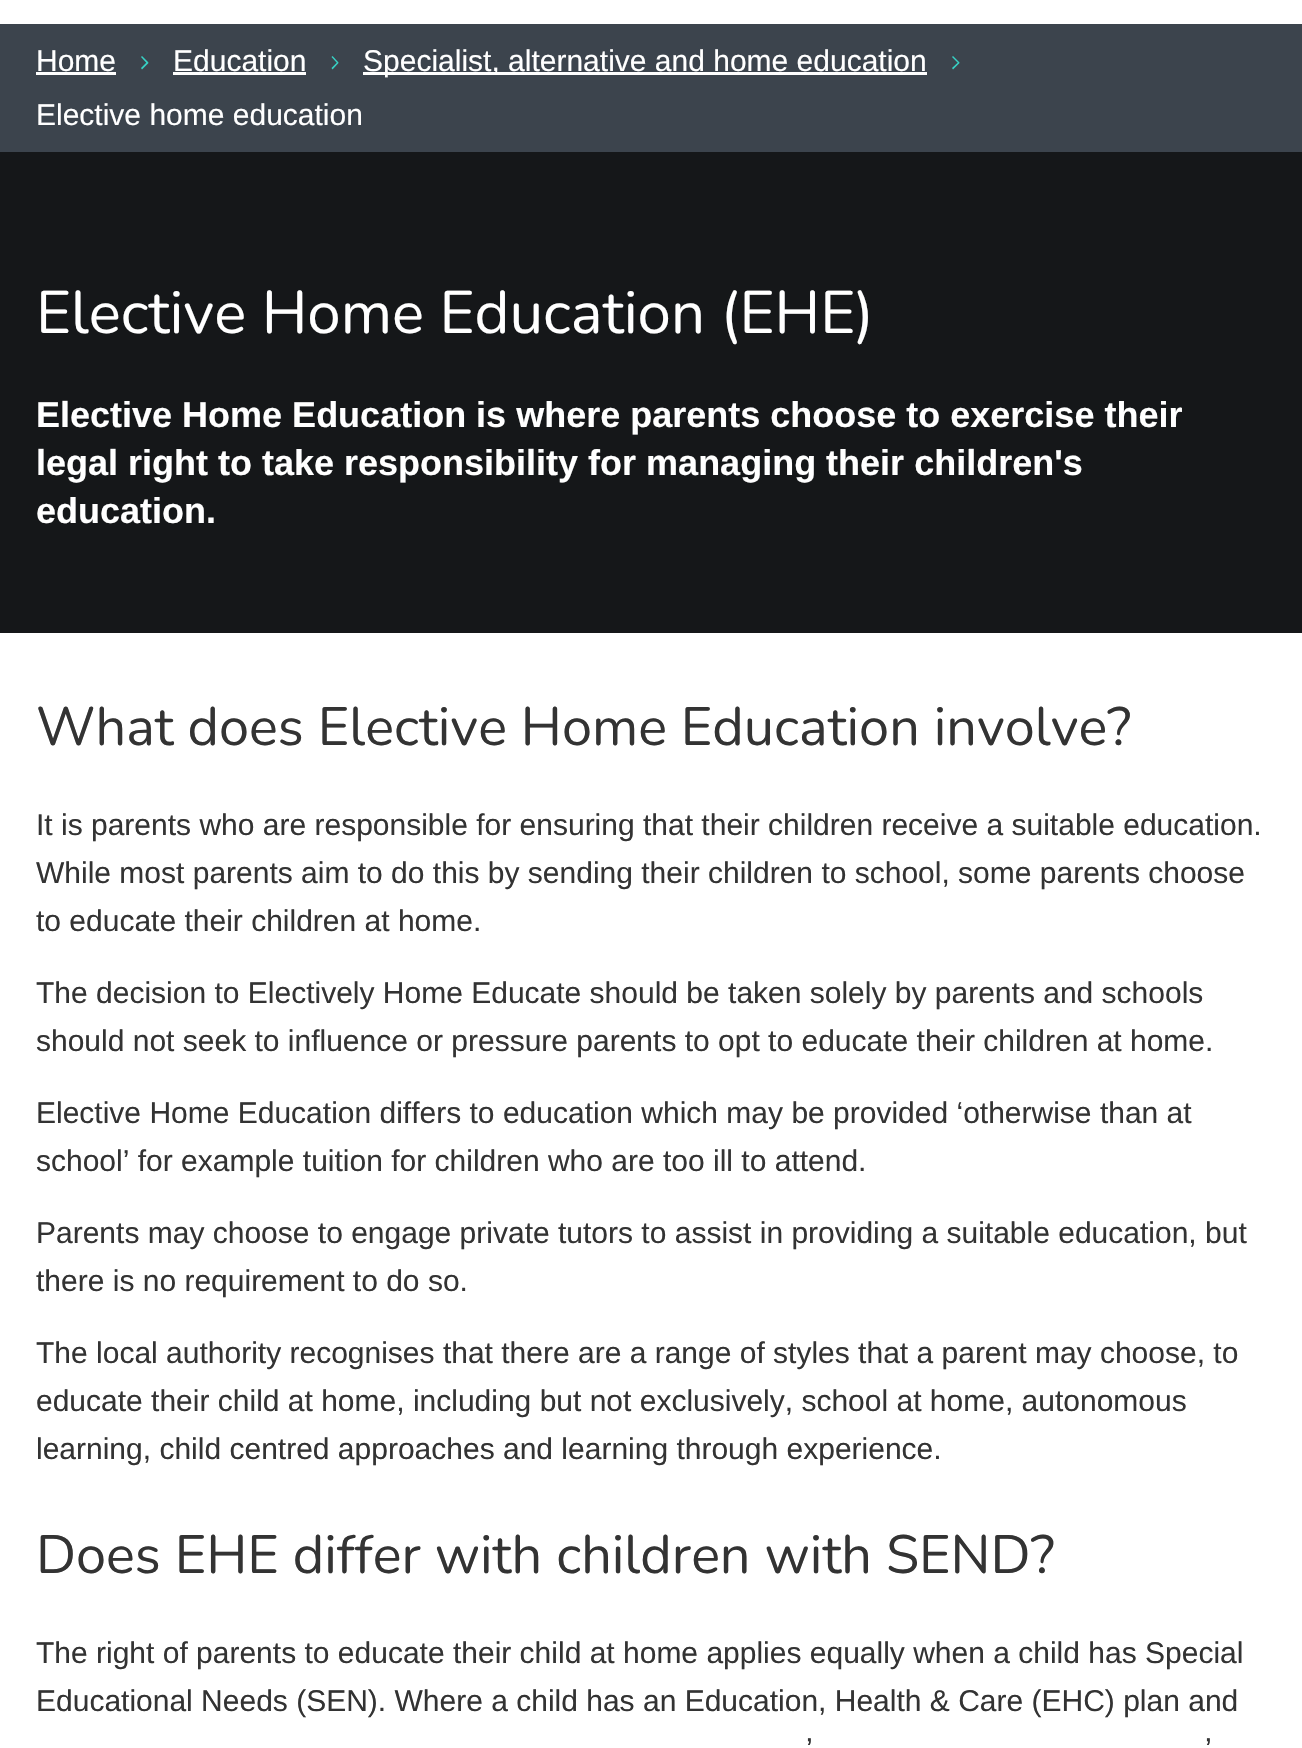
void draw(SkCanvas* canvas) {
    SkPaint paint;
    paint.setAntiAlias(true);
    canvas->clear(0xFFFFFFFF);
    paint.setColor(0xFF3C444D);
    canvas->drawRect(SkRect::MakeXYWH(0, 24, 1302, 128), paint);
    SkFont font1(fontMgr->matchFamilyStyle("Liberation Sans", SkFontStyle::Normal()), 30);
    font1.setSubpixel(true);
    paint.setColor(0xFFFFFFFF);
    canvas->drawString("Home", 36, 71, font1, paint);
    canvas->drawRect(SkRect::MakeXYWH(36, 72, 80, 3), paint);
    paint.setColor(0xFF36D2C5);
    canvas->drawPath(SkPathBuilder().moveTo(142, 56).lineTo(148.5f, 62.5f).lineTo(147, 63.5f).lineTo(141, 57).close().detach(), paint);
    canvas->drawPath(SkPathBuilder().moveTo(148.5f, 63).lineTo(142, 69.5f).lineTo(141, 68).lineTo(147, 62).close().detach(), paint);
    paint.setColor(0xFFFFFFFF);
    canvas->drawString("Education", 173, 71, font1, paint);
    canvas->drawRect(SkRect::MakeXYWH(173, 72, 133, 3), paint);
    paint.setColor(0xFF36D2C5);
    canvas->drawPath(SkPathBuilder().moveTo(332.5f, 56).lineTo(338.5f, 62.5f).lineTo(337.5f, 63.5f).lineTo(331.5f, 57).close().detach(), paint);
    canvas->drawPath(SkPathBuilder().moveTo(338.5f, 63).lineTo(332.5f, 69.5f).lineTo(331.5f, 68).lineTo(337.5f, 62).close().detach(), paint);
    paint.setColor(0xFFFFFFFF);
    canvas->drawRect(SkRect::MakeXYWH(363, 72, 564, 3), paint);
    canvas->drawString("Specialist, alternative and home education", 363, 71, font1, paint);
    paint.setColor(0xFF36D2C5);
    canvas->drawPath(SkPathBuilder().moveTo(953, 56).lineTo(959.5f, 62.5f).lineTo(958.5f, 63.5f).lineTo(952, 57).close().detach(), paint);
    canvas->drawPath(SkPathBuilder().moveTo(959.5f, 63).lineTo(953, 69.5f).lineTo(952, 68).lineTo(958.5f, 62).close().detach(), paint);
    paint.setColor(0xFFFFFFFF);
    canvas->drawString("Elective home education", 36, 125, font1, paint);
    paint.setColor(0xFF151719);
    canvas->drawRect(SkRect::MakeXYWH(0, 152, 1302, 481), paint);
    SkFont font2(fontMgr->matchFamilyStyle("Nunito", SkFontStyle(200, SkFontStyle::kNormal_Width, SkFontStyle::kUpright_Slant)), 60);
    font2.setSubpixel(true);
    paint.setColor(0xFFFFFFFF);
    canvas->drawString("Elective Home Education (EHE)", 36, 333, font2, paint);
    SkFont font3(fontMgr->matchFamilyStyle("Liberation Sans", SkFontStyle::Bold()), 36);
    font3.setSubpixel(true);
    canvas->drawString("Elective Home Education is where parents choose to exercise their", 36, 427, font3, paint);
    canvas->drawString("legal right to take responsibility for managing their children's", 36, 475, font3, paint);
    canvas->drawString("education.", 36, 523, font3, paint);
    SkFont font4(fontMgr->matchFamilyStyle("Nunito", SkFontStyle(200, SkFontStyle::kNormal_Width, SkFontStyle::kUpright_Slant)), 54);
    font4.setSubpixel(true);
    paint.setColor(0xFF333333);
    canvas->drawString("What does Elective Home Education involve?", 36, 745, font4, paint);
    canvas->drawString("It is parents who are responsible for ensuring that their children receive a suitable education.", 36, 835, font1, paint);
    canvas->drawString("While most parents aim to do this by sending their children to school, some parents choose", 36, 883, font1, paint);
    canvas->drawString("to educate their children at home.", 36, 931, font1, paint);
    canvas->drawString("The decision to Electively Home Educate should be taken solely by parents and schools", 36, 1003, font1, paint);
    canvas->drawString("should not seek to influence or pressure parents to opt to educate their children at home.", 36, 1051, font1, paint);
    canvas->drawString("Elective Home Education differs to education which may be provided ‘otherwise than at", 36, 1123, font1, paint);
    canvas->drawString("school’ for example tuition for children who are too ill to attend.", 36, 1171, font1, paint);
    canvas->drawString("Parents may choose to engage private tutors to assist in providing a suitable education, but", 36, 1243, font1, paint);
    canvas->drawString("there is no requirement to do so.", 36, 1291, font1, paint);
    canvas->drawString("The local authority recognises that there are a range of styles that a parent may choose, to", 36, 1363, font1, paint);
    canvas->drawString("educate their child at home, including but not exclusively, school at home, autonomous", 36, 1411, font1, paint);
    canvas->drawString("learning, child centred approaches and learning through experience.", 36, 1459, font1, paint);
    canvas->drawString("Does EHE differ with children with SEND?", 36, 1573, font4, paint);
    canvas->drawString("The right of parents to educate their child at home applies equally when a child has Special", 36, 1663, font1, paint);
    canvas->drawString("Educational Needs (SEN). Where a child has an Education, Health & Care (EHC) plan and", 36, 1711, font1, paint);
    canvas->drawString("’", 806, 1759, font1, paint);
    canvas->drawString("’", 1205, 1759, font1, paint);
}
